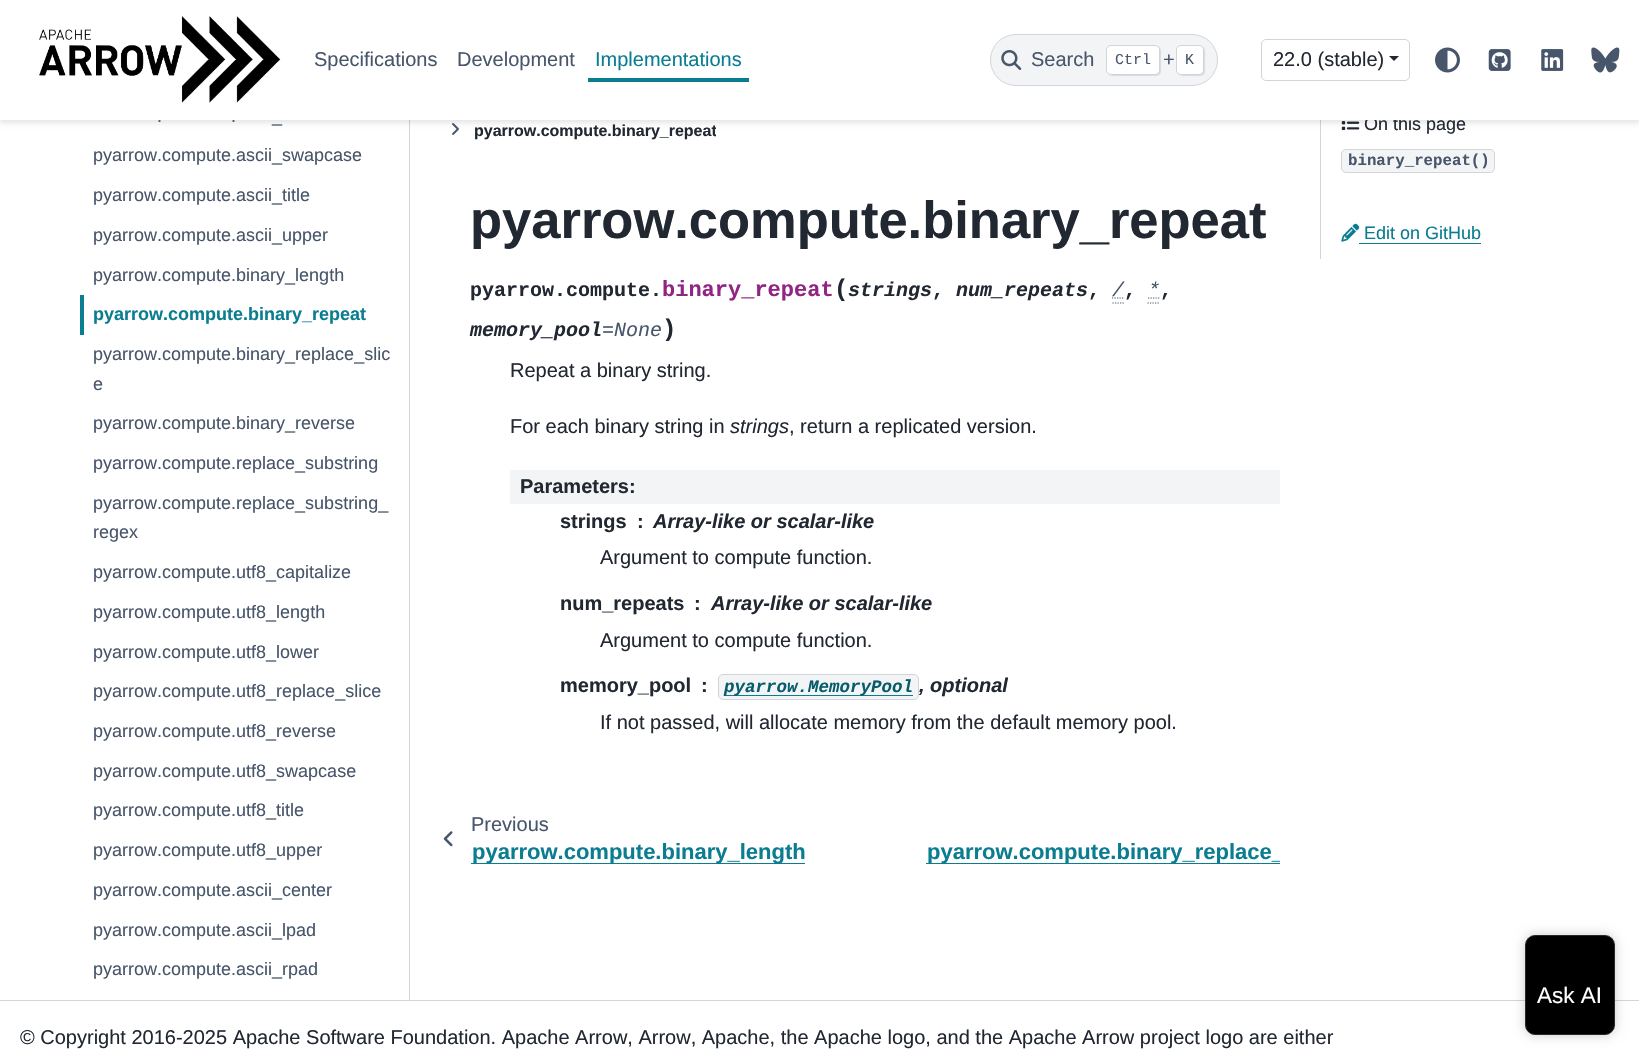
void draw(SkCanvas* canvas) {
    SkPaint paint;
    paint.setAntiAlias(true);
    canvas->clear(0xFFFFFFFF);
    paint.setColor(0xFFD1D5DA);
    canvas->drawRect(SkRect::MakeXYWH(409, 120, 1, 880), paint);
    canvas->drawImageRect(SkImages::DeferredFromEncodedData(SkData::MakeFromFileName("img7.png")), SkRect::MakeXYWH(452, 123, 7, 12), SkSamplingOptions());
    canvas->drawRect(SkRect::MakeXYWH(1320, 120, 1, 139), paint);
    canvas->drawImageRect(SkImages::DeferredFromEncodedData(SkData::MakeFromFileName("img9.png")), SkRect::MakeXYWH(1341, 121, 19, 10), SkSamplingOptions());
    paint.setColor(0x1A000000);
    paint.setMaskFilter(SkMaskFilter::MakeBlur(kNormal_SkBlurStyle, 2.5f));
    canvas->drawRect(SkRect::MakeXYWH(0, 3, 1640, 120), paint);
    paint.setMaskFilter(nullptr);
    SkFont font1(fontMgr->matchFamilyStyle("Liberation Sans", SkFontStyle::Normal()), 18);
    font1.setSubpixel(true);
    paint.setColor(0xFF222832);
    canvas->drawString("On this page", 1364, 130, font1, paint);
    paint.setColor(0xFFFFFFFF);
    canvas->drawRect(SkRect::MakeXYWH(0, 0, 1639, 120), paint);
    canvas->drawImageRect(SkImages::DeferredFromEncodedData(SkData::MakeFromFileName("img1.png")), SkRect::MakeXYWH(39, 16, 242, 87), SkSamplingOptions());
    SkFont font2(fontMgr->matchFamilyStyle("Liberation Sans", SkFontStyle::Normal()), 20);
    font2.setSubpixel(true);
    paint.setColor(0xFF48566B);
    canvas->drawString("Specifications", 314, 66, font2, paint);
    canvas->drawString("Development", 457, 66, font2, paint);
    paint.setColor(0xFF0A7D91);
    canvas->drawString("Implementations", 595, 66, font2, paint);
    canvas->drawRect(SkRect::MakeXYWH(588, 78, 161, 4), paint);
    paint.setColor(0xFFF3F4F5);
    canvas->drawRoundRect(SkRect::MakeXYWH(990.5f, 34.5f, 227, 51), 25.5f, 25.5f, paint);
    paint.setStyle(SkPaint::kStroke_Style);
    paint.setStrokeWidth(1);
    paint.setColor(0xFFD1D5DA);
    canvas->drawRoundRect(SkRect::MakeXYWH(990.5f, 34.5f, 227, 51), 25.5f, 25.5f, paint);
    canvas->drawImageRect(SkImages::DeferredFromEncodedData(SkData::MakeFromFileName("img2.png")), SkRect::MakeXYWH(1001, 50, 21, 20), SkSamplingOptions());
    paint.setStyle(SkPaint::kFill_Style);
    paint.setColor(0xFF48566B);
    canvas->drawString("Search", 1031, 66, font2, paint);
    paint.setColor(0x1A000000);
    paint.setMaskFilter(SkMaskFilter::MakeBlur(kNormal_SkBlurStyle, 0.5f));
    canvas->drawRoundRect(SkRect::MakeXYWH(1108, 46, 53, 30), 5, 5, paint);
    paint.setMaskFilter(nullptr);
    paint.setColor(0xFFFFFFFF);
    canvas->drawRoundRect(SkRect::MakeXYWH(1106.5f, 45.5f, 53, 29), 4.5f, 4.5f, paint);
    paint.setStyle(SkPaint::kStroke_Style);
    paint.setColor(0xFFD1D5DA);
    canvas->drawRoundRect(SkRect::MakeXYWH(1106.5f, 45.5f, 53, 29), 4.5f, 4.5f, paint);
    SkFont font3(fontMgr->matchFamilyStyle("Liberation Mono", SkFontStyle::Normal()), 15);
    font3.setSubpixel(true);
    paint.setStyle(SkPaint::kFill_Style);
    paint.setColor(0xFF48566B);
    canvas->drawString("Ctrl", 1115, 64, font3, paint);
    canvas->drawString("+", 1163, 66, font2, paint);
    paint.setColor(0x1A000000);
    paint.setMaskFilter(SkMaskFilter::MakeBlur(kNormal_SkBlurStyle, 0.5f));
    canvas->drawRoundRect(SkRect::MakeXYWH(1178, 46, 27, 30), 5, 5, paint);
    paint.setMaskFilter(nullptr);
    paint.setColor(0xFFFFFFFF);
    canvas->drawRoundRect(SkRect::MakeXYWH(1176.5f, 45.5f, 27, 29), 4.5f, 4.5f, paint);
    paint.setStyle(SkPaint::kStroke_Style);
    paint.setColor(0xFFD1D5DA);
    canvas->drawRoundRect(SkRect::MakeXYWH(1176.5f, 45.5f, 27, 29), 4.5f, 4.5f, paint);
    paint.setStyle(SkPaint::kFill_Style);
    paint.setColor(0xFF48566B);
    canvas->drawString("K", 1185, 64, font3, paint);
    paint.setStyle(SkPaint::kStroke_Style);
    paint.setColor(0xFFD1D5DA);
    canvas->drawRoundRect(SkRect::MakeXYWH(1261.5f, 39.5f, 148, 41), 4.5f, 4.5f, paint);
    paint.setStyle(SkPaint::kFill_Style);
    paint.setColor(0xFF222832);
    canvas->drawString("22.0 (stable)", 1273, 66, font2, paint);
    canvas->drawPath(SkPathBuilder().moveTo(1389, 56).lineTo(1399, 56).lineTo(1394, 61).close().detach(), paint);
    canvas->drawImageRect(SkImages::DeferredFromEncodedData(SkData::MakeFromFileName("img3.png")), SkRect::MakeXYWH(1435, 47, 25, 26), SkSamplingOptions());
    canvas->drawImageRect(SkImages::DeferredFromEncodedData(SkData::MakeFromFileName("img4.png")), SkRect::MakeXYWH(1488, 49, 23, 22), SkSamplingOptions());
    canvas->drawImageRect(SkImages::DeferredFromEncodedData(SkData::MakeFromFileName("img5.png")), SkRect::MakeXYWH(1541, 49, 23, 22), SkSamplingOptions());
    canvas->drawImageRect(SkImages::DeferredFromEncodedData(SkData::MakeFromFileName("img6.png")), SkRect::MakeXYWH(1591, 47, 29, 26), SkSamplingOptions());
    paint.setColor(0xFF48566B);
    canvas->drawString(".", 157, 122, font1, paint);
    canvas->drawString(".", 231, 122, font1, paint);
    canvas->drawString("_", 272, 122, font1, paint);
    canvas->drawString("pyarrow.compute.ascii_swapcase", 93, 161, font1, paint);
    canvas->drawString("pyarrow.compute.ascii_title", 93, 201, font1, paint);
    canvas->drawString("pyarrow.compute.ascii_upper", 93, 241, font1, paint);
    canvas->drawString("pyarrow.compute.binary_length", 93, 281, font1, paint);
    paint.setColor(0xFF0A7D91);
    canvas->drawRect(SkRect::MakeXYWH(80, 295, 4, 40), paint);
    SkFont font4(fontMgr->matchFamilyStyle("Liberation Sans", SkFontStyle::Bold()), 18);
    font4.setSubpixel(true);
    canvas->drawString("pyarrow.compute.binary_repeat", 93, 320, font4, paint);
    paint.setColor(0xFF48566B);
    canvas->drawString("pyarrow.compute.binary_replace_slic", 93, 360, font1, paint);
    canvas->drawString("e", 93, 390, font1, paint);
    canvas->drawString("pyarrow.compute.binary_reverse", 93, 429, font1, paint);
    canvas->drawString("pyarrow.compute.replace_substring", 93, 469, font1, paint);
    canvas->drawString("pyarrow.compute.replace_substring_", 93, 509, font1, paint);
    canvas->drawString("regex", 93, 538, font1, paint);
    canvas->drawString("pyarrow.compute.utf8_capitalize", 93, 578, font1, paint);
    canvas->drawString("pyarrow.compute.utf8_length", 93, 618, font1, paint);
    canvas->drawString("pyarrow.compute.utf8_lower", 93, 658, font1, paint);
    canvas->drawString("pyarrow.compute.utf8_replace_slice", 93, 697, font1, paint);
    canvas->drawString("pyarrow.compute.utf8_reverse", 93, 737, font1, paint);
    canvas->drawString("pyarrow.compute.utf8_swapcase", 93, 777, font1, paint);
    canvas->drawString("pyarrow.compute.utf8_title", 93, 816, font1, paint);
    canvas->drawString("pyarrow.compute.utf8_upper", 93, 856, font1, paint);
    canvas->drawString("pyarrow.compute.ascii_center", 93, 896, font1, paint);
    canvas->drawString("pyarrow.compute.ascii_lpad", 93, 936, font1, paint);
    canvas->drawString("pyarrow.compute.ascii_rpad", 93, 975, font1, paint);
    canvas->save();
    canvas->clipRect(SkRect::MakeXYWH(474, 118, 242, 26));
    SkFont font5(fontMgr->matchFamilyStyle("Liberation Sans", SkFontStyle::Bold()), 16);
    font5.setSubpixel(true);
    paint.setColor(0xFF222832);
    canvas->drawString("pyarrow.compute.binary_repeat", 474, 136, font5, paint);
    canvas->restore();
    SkFont font6(fontMgr->matchFamilyStyle("Liberation Sans", SkFontStyle::Bold()), 52.5f);
    font6.setSubpixel(true);
    canvas->drawString("pyarrow.compute.binary_repeat", 470, 238, font6, paint);
    SkFont font7(fontMgr->matchFamilyStyle("Liberation Mono", SkFontStyle::Bold()), 20);
    font7.setSubpixel(true);
    canvas->drawString("pyarrow.compute.", 470, 296, font7, paint);
    SkFont font8(fontMgr->matchFamilyStyle("Liberation Mono", SkFontStyle::Bold()), 22);
    font8.setSubpixel(true);
    paint.setColor(0xFF912583);
    canvas->drawString("binary_repeat", 662, 296, font8, paint);
    SkFont font9(fontMgr->matchFamilyStyle("Liberation Mono", SkFontStyle::Bold()), 24);
    font9.setSubpixel(true);
    paint.setColor(0xFF222832);
    canvas->drawString("(", 834, 296, font9, paint);
    SkFont font10(fontMgr->matchFamilyStyle("Liberation Mono", SkFontStyle::BoldItalic()), 20);
    font10.setSubpixel(true);
    canvas->drawString("strings", 848, 296, font10, paint);
    canvas->drawString(",", 932, 296, font7, paint);
    canvas->drawString("num_repeats", 956, 296, font10, paint);
    canvas->drawString(",", 1088, 296, font7, paint);
    SkFont font11(fontMgr->matchFamilyStyle("Liberation Mono", SkFontStyle::Italic()), 20);
    font11.setSubpixel(true);
    paint.setColor(0xFF48566B);
    canvas->drawString("/", 1112, 296, font11, paint);
    paint.setStyle(SkPaint::kStroke_Style);
    paint.setStrokeWidth(1.2f);
    paint.setPathEffect(SkDashPathEffect::Make({{1.25f, 1.25f}}, 0));
    canvas->drawPath(SkPathBuilder().moveTo(1112.5f, 303).lineTo(1124, 303).moveTo(1112, 298).lineTo(1124, 298).detach(), paint);
    paint.setPathEffect(nullptr);
    paint.setStyle(SkPaint::kFill_Style);
    paint.setColor(0xFF222832);
    canvas->drawString(",", 1124, 296, font7, paint);
    paint.setColor(0xFF48566B);
    canvas->drawString("*", 1148, 296, font11, paint);
    paint.setStyle(SkPaint::kStroke_Style);
    paint.setPathEffect(SkDashPathEffect::Make({{1.25f, 1.25f}}, 0));
    canvas->drawPath(SkPathBuilder().moveTo(1147.5f, 303).lineTo(1160, 303).moveTo(1148, 298).lineTo(1160, 298).detach(), paint);
    paint.setPathEffect(nullptr);
    paint.setStyle(SkPaint::kFill_Style);
    paint.setColor(0xFF222832);
    canvas->drawString(",", 1160, 296, font7, paint);
    canvas->drawString("memory_pool", 470, 336, font10, paint);
    paint.setColor(0xFF48566B);
    canvas->drawString("=None", 602, 336, font11, paint);
    paint.setColor(0xFF222832);
    canvas->drawString(")", 662, 336, font9, paint);
    canvas->drawString("Repeat a binary string.", 510, 377, font2, paint);
    canvas->drawString("For each binary string in", 510, 433, font2, paint);
    SkFont font12(fontMgr->matchFamilyStyle("Liberation Sans", SkFontStyle::Italic()), 20);
    font12.setSubpixel(true);
    canvas->drawString("strings", 730, 433, font12, paint);
    canvas->drawString(", return a replicated version.", 789, 433, font2, paint);
    paint.setColor(0xFFF3F4F5);
    canvas->drawRect(SkRect::MakeXYWH(510, 470, 770, 34), paint);
    SkFont font13(fontMgr->matchFamilyStyle("Liberation Sans", SkFontStyle::Bold()), 20);
    font13.setSubpixel(true);
    paint.setColor(0xFF222832);
    canvas->drawString("Parameters:", 520, 493, font13, paint);
    canvas->drawString("strings", 560, 528, font13, paint);
    canvas->drawString(":", 637, 528, font13, paint);
    SkFont font14(fontMgr->matchFamilyStyle("Liberation Sans", SkFontStyle::BoldItalic()), 20);
    font14.setSubpixel(true);
    canvas->drawString("Array-like or scalar-like", 653, 528, font14, paint);
    canvas->drawString("Argument to compute function.", 600, 564, font2, paint);
    canvas->drawString("num_repeats", 560, 610, font13, paint);
    canvas->drawString(":", 694, 610, font13, paint);
    canvas->drawString("Array-like or scalar-like", 711, 610, font14, paint);
    canvas->drawString("Argument to compute function.", 600, 647, font2, paint);
    canvas->drawString("memory_pool", 560, 692, font13, paint);
    canvas->drawString(":", 701, 692, font13, paint);
    paint.setColor(0xFFF3F4F5);
    canvas->drawRoundRect(SkRect::MakeXYWH(718.5f, 674.5f, 200, 25), 4.5f, 4.5f, paint);
    paint.setStyle(SkPaint::kStroke_Style);
    paint.setStrokeWidth(1);
    paint.setColor(0xFFD1D5DA);
    canvas->drawRoundRect(SkRect::MakeXYWH(718.5f, 674.5f, 200, 25), 4.5f, 4.5f, paint);
    paint.setStyle(SkPaint::kFill_Style);
    paint.setColor(0xFF0A7D91);
    canvas->drawRect(SkRect::MakeXYWH(724, 695, 189, 1), paint);
    SkFont font15(fontMgr->matchFamilyStyle("Liberation Mono", SkFontStyle::BoldItalic()), 17.5f);
    font15.setSubpixel(true);
    paint.setColor(0xFF085D6C);
    canvas->drawString("pyarrow.MemoryPool", 724, 692, font15, paint);
    paint.setColor(0xFF222832);
    canvas->drawString(", optional", 919, 692, font14, paint);
    canvas->drawString("If not passed, will allocate memory from the default memory pool.", 600, 729, font2, paint);
    canvas->drawImageRect(SkImages::DeferredFromEncodedData(SkData::MakeFromFileName("img8.png")), SkRect::MakeXYWH(443, 831, 10, 16), SkSamplingOptions());
    paint.setColor(0xFF48566B);
    canvas->drawString("Previous", 471, 831, font2, paint);
    paint.setColor(0xFF0A7D91);
    canvas->drawRect(SkRect::MakeXYWH(471, 863, 334, 1), paint);
    SkFont font16(fontMgr->matchFamilyStyle("Liberation Sans", SkFontStyle::Bold()), 22);
    font16.setSubpixel(true);
    canvas->drawString("pyarrow.compute.binary_length", 472, 859, font16, paint);
    canvas->drawRect(SkRect::MakeXYWH(926, 863, 354, 1), paint);
    canvas->save();
    canvas->clipRect(SkRect::MakeXYWH(898, 800, 382, 79));
    canvas->drawString("pyarrow.compute.binary_replace_", 927, 859, font16, paint);
    canvas->restore();
    paint.setColor(0xFFF3F4F5);
    canvas->drawRoundRect(SkRect::MakeXYWH(1341.5f, 149.5f, 153, 23), 4.5f, 4.5f, paint);
    paint.setStyle(SkPaint::kStroke_Style);
    paint.setColor(0xFFD1D5DA);
    canvas->drawRoundRect(SkRect::MakeXYWH(1341.5f, 149.5f, 153, 23), 4.5f, 4.5f, paint);
    SkFont font17(fontMgr->matchFamilyStyle("Liberation Mono", SkFontStyle::Bold()), 15.75f);
    font17.setSubpixel(true);
    paint.setStyle(SkPaint::kFill_Style);
    paint.setColor(0xFF48566B);
    canvas->drawString("binary_repeat()", 1348, 165, font17, paint);
    canvas->drawImageRect(SkImages::DeferredFromEncodedData(SkData::MakeFromFileName("img10.png")), SkRect::MakeXYWH(1341, 223, 19, 19), SkSamplingOptions());
    paint.setColor(0xFF0A7D91);
    canvas->drawString("Edit on GitHub", 1364, 239, font1, paint);
    canvas->drawRect(SkRect::MakeXYWH(1359, 243, 122, 1), paint);
    paint.setColor(0xFFD1D5DA);
    canvas->drawRect(SkRect::MakeXYWH(0, 1000, 1639, 1), paint);
    paint.setColor(0x33000000);
    paint.setMaskFilter(SkMaskFilter::MakeBlur(kNormal_SkBlurStyle, 6));
    canvas->drawRoundRect(SkRect::MakeXYWH(1525, 935, 90, 100), 10, 10, paint);
    paint.setMaskFilter(nullptr);
    paint.setColor(0xFF000000);
    canvas->drawRoundRect(SkRect::MakeXYWH(1525.5f, 935.5f, 89, 99), 9.5f, 9.5f, paint);
    paint.setStyle(SkPaint::kStroke_Style);
    paint.setColor(0xFF282828);
    canvas->drawRoundRect(SkRect::MakeXYWH(1525.5f, 935.5f, 89, 99), 9.5f, 9.5f, paint);
    SkFont font18(fontMgr->matchFamilyStyle("Liberation Sans", SkFontStyle::Normal()), 22.5f);
    font18.setSubpixel(true);
    paint.setStyle(SkPaint::kFill_Style);
    paint.setColor(0xFFFFFFFF);
    canvas->drawString("Ask AI", 1537, 1003, font18, paint);
    paint.setColor(0xFF222832);
    canvas->drawString("© Copyright 2016-2025 Apache Software Foundation. Apache Arrow, Arrow, Apache, the Apache logo, and the Apache Arrow project logo are either", 20, 1044, font2, paint);
}
